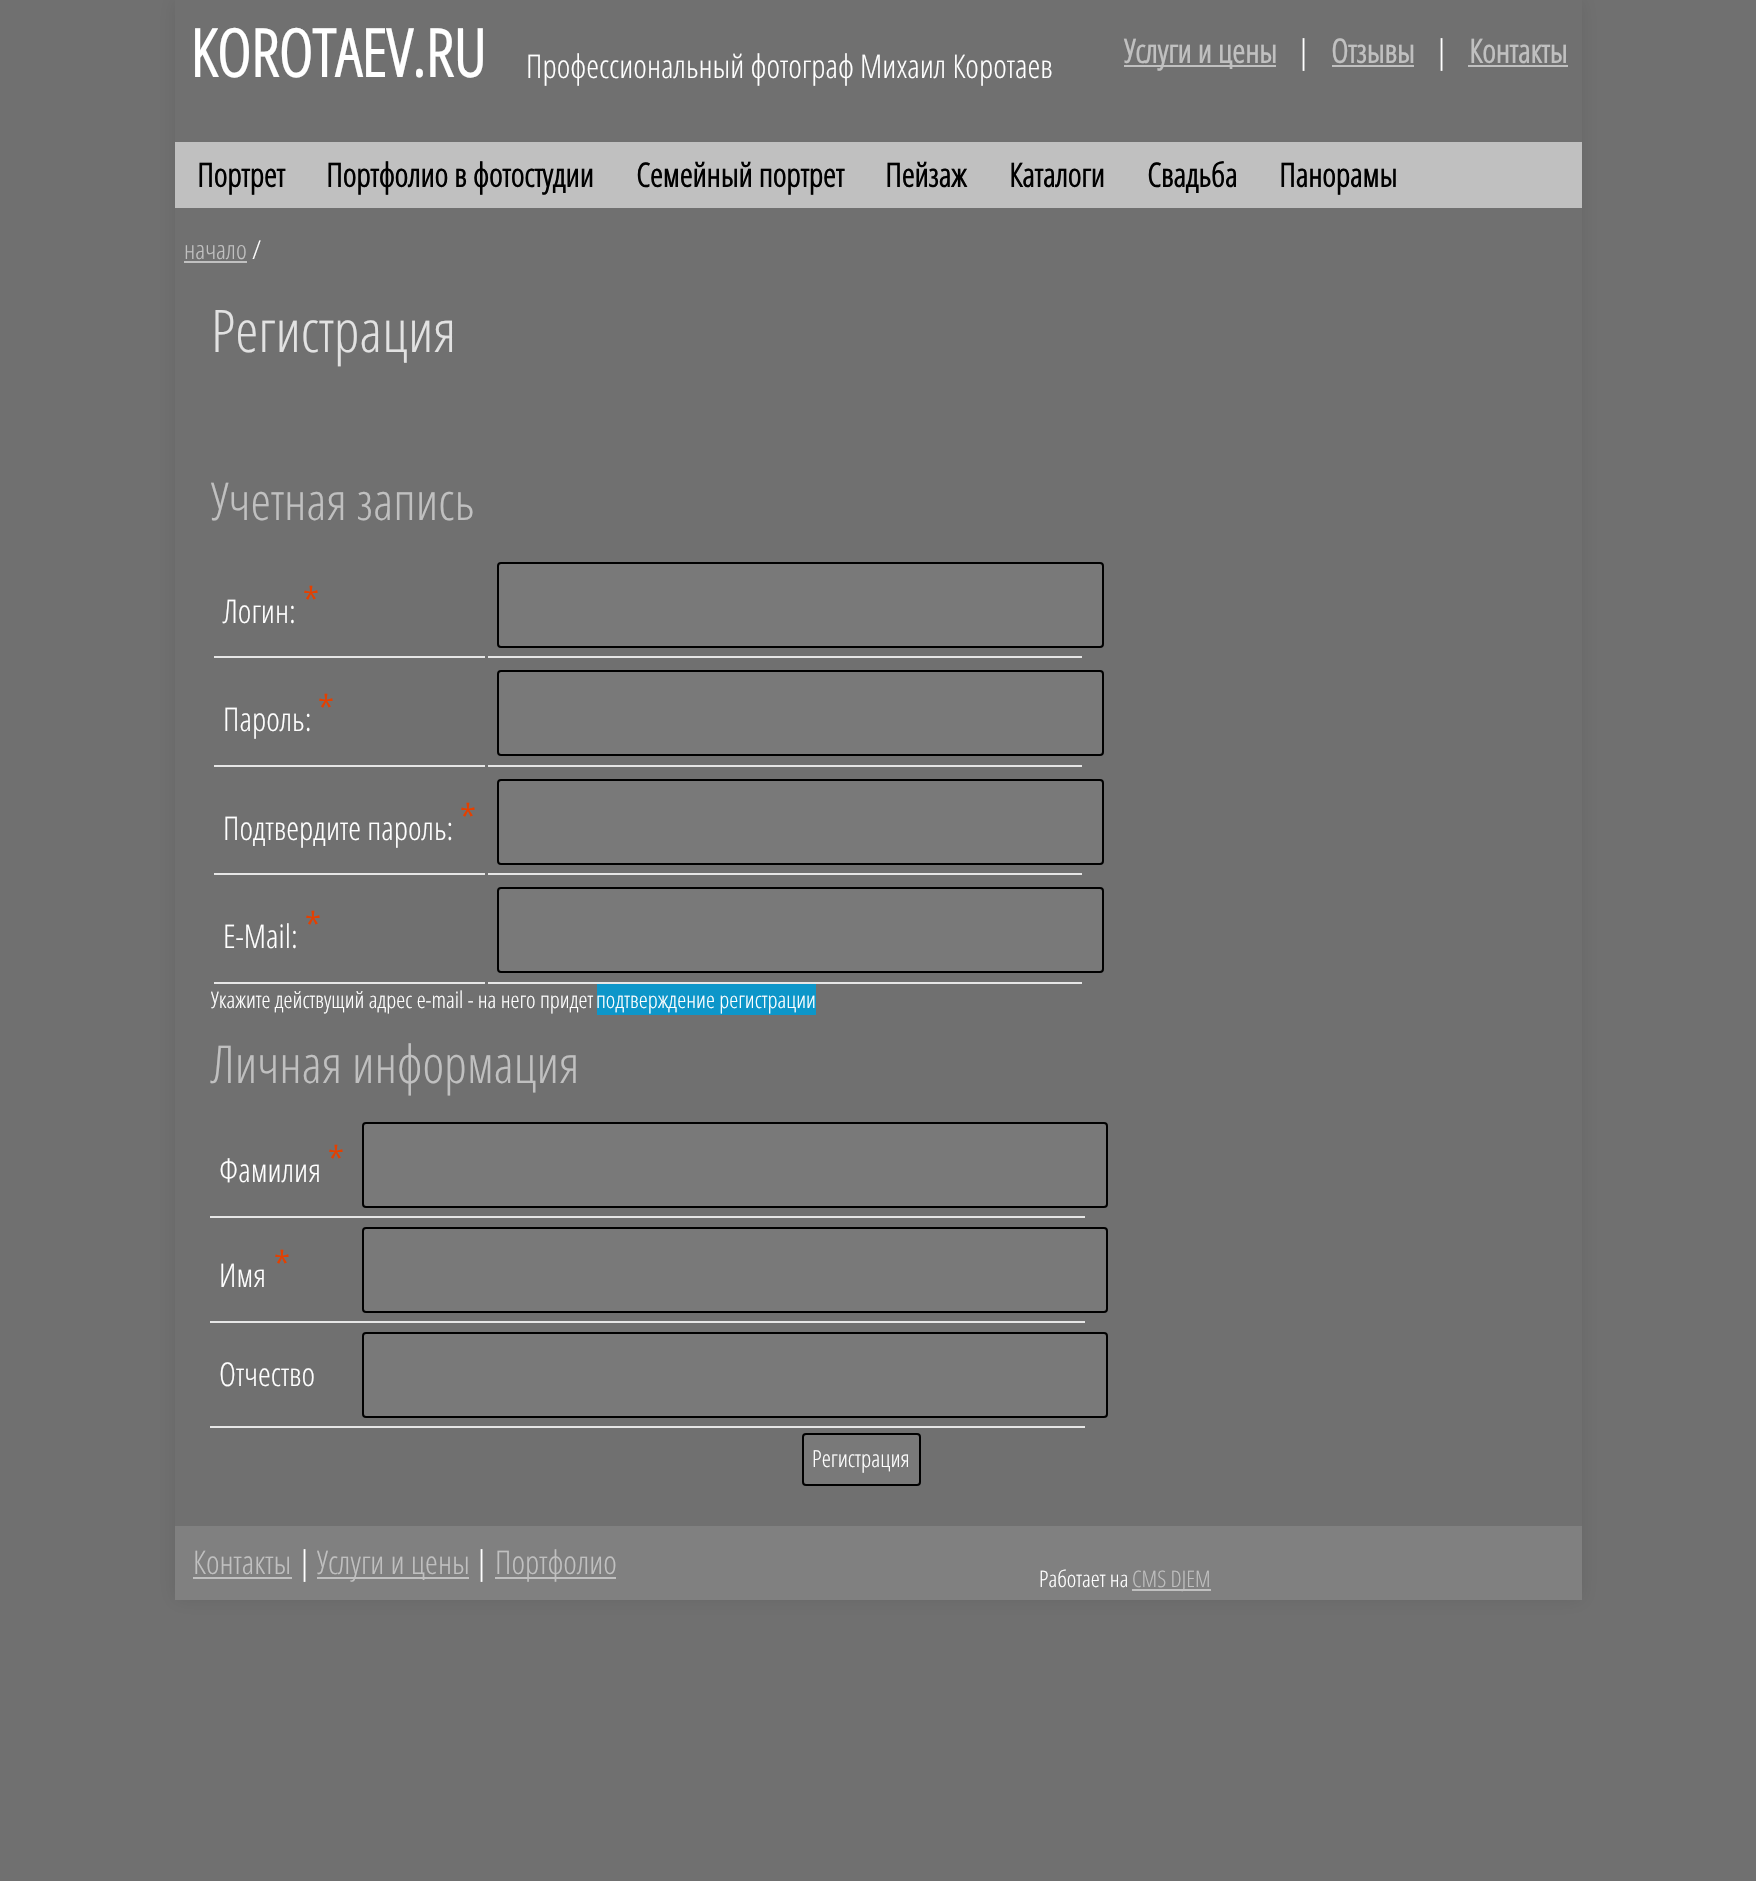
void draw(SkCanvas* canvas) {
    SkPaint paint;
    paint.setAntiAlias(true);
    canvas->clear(0xFF707070);
    paint.setColor(0xFF666666);
    paint.setMaskFilter(SkMaskFilter::MakeBlur(kNormal_SkBlurStyle, 9));
    canvas->drawRect(SkRect::MakeXYWH(175, 0, 1407, 1600), paint);
    paint.setMaskFilter(nullptr);
    paint.setColor(0xFF707070);
    canvas->drawRect(SkRect::MakeXYWH(175, 0, 1407, 1526), paint);
    SkFont font1(fontMgr->matchFamilyStyle("Open Sans Condensed", SkFontStyle::Bold()), 65.5f);
    font1.setSubpixel(true);
    paint.setColor(0xFFFFFFFF);
    canvas->drawString("KOROTAEV.RU", 190, 77, font1, paint);
    SkFont font2(fontMgr->matchFamilyStyle("Open Sans Condensed", SkFontStyle(300, SkFontStyle::kNormal_Width, SkFontStyle::kUpright_Slant)), 32.7f);
    font2.setSubpixel(true);
    canvas->drawString("Профессиональный фотограф Михаил Коротаев", 526, 78, font2, paint);
    paint.setColor(0xFFC0C0C0);
    canvas->drawRect(SkRect::MakeXYWH(1124, 65, 152, 2), paint);
    SkFont font3(fontMgr->matchFamilyStyle("Open Sans Condensed", SkFontStyle::Bold()), 32.7f);
    font3.setSubpixel(true);
    canvas->drawString("Услуги и цены", 1124, 63, font3, paint);
    paint.setColor(0xFFFFFFFF);
    canvas->drawString("|", 1297, 63, font2, paint);
    paint.setColor(0xFFC0C0C0);
    canvas->drawString("Отзывы", 1331, 63, font3, paint);
    canvas->drawRect(SkRect::MakeXYWH(1332, 65, 82, 2), paint);
    paint.setColor(0xFFFFFFFF);
    canvas->drawString("|", 1435, 63, font2, paint);
    paint.setColor(0xFFC0C0C0);
    canvas->drawString("Контакты", 1469, 63, font3, paint);
    canvas->drawRect(SkRect::MakeXYWH(1468, 65, 100, 2), paint);
    canvas->drawRect(SkRect::MakeXYWH(175, 142, 1407, 66), paint);
    paint.setColor(0xFF000000);
    canvas->drawString("Портрет", 197, 187, font3, paint);
    canvas->drawString("Портфолио в фотостудии", 326, 187, font3, paint);
    canvas->drawString("Семейный портрет", 636, 187, font3, paint);
    canvas->drawString("Пейзаж", 885, 187, font3, paint);
    canvas->drawString("Каталоги", 1009, 187, font3, paint);
    canvas->drawString("Свадьба", 1147, 187, font3, paint);
    canvas->drawString("Панорамы", 1279, 187, font3, paint);
    SkFont font4(fontMgr->matchFamilyStyle("Open Sans Condensed", SkFontStyle(300, SkFontStyle::kNormal_Width, SkFontStyle::kUpright_Slant)), 26);
    font4.setSubpixel(true);
    paint.setColor(0xFFC0C0C0);
    canvas->drawString("начало", 184, 259, font4, paint);
    canvas->drawRect(SkRect::MakeXYWH(184, 261, 63, 2), paint);
    paint.setColor(0xFFFFFFFF);
    canvas->drawString("/", 252, 259, font4, paint);
    SkFont font5(fontMgr->matchFamilyStyle("Open Sans Condensed", SkFontStyle(300, SkFontStyle::kNormal_Width, SkFontStyle::kUpright_Slant)), 59);
    font5.setSubpixel(true);
    paint.setColor(0xFFE2E2E2);
    canvas->drawString("Регистрация", 211, 352, font5, paint);
    SkFont font6(fontMgr->matchFamilyStyle("Open Sans Condensed", SkFontStyle(300, SkFontStyle::kNormal_Width, SkFontStyle::kUpright_Slant)), 52.25f);
    font6.setSubpixel(true);
    paint.setColor(0xFFC0C0C0);
    canvas->drawString("Учетная запись", 211, 520, font6, paint);
    paint.setColor(0xFFE6E6E6);
    canvas->drawRect(SkRect::MakeXYWH(214, 656, 271, 2), paint);
    SkFont font7(fontMgr->matchFamilyStyle("Open Sans Condensed", SkFontStyle(300, SkFontStyle::kNormal_Width, SkFontStyle::kUpright_Slant)), 49);
    font7.setSubpixel(true);
    paint.setColor(0xFFE44000);
    canvas->drawString("*", 302, 623, font7, paint);
    paint.setColor(0xFFFFFFFF);
    canvas->drawString("Логин:", 223, 623, font2, paint);
    paint.setColor(0xFFE6E6E6);
    canvas->drawRect(SkRect::MakeXYWH(488, 656, 594, 2), paint);
    paint.setColor(0xFF797979);
    canvas->drawRoundRect(SkRect::MakeXYWH(498, 563, 605, 84), 3, 3, paint);
    paint.setStyle(SkPaint::kStroke_Style);
    paint.setStrokeWidth(2);
    paint.setColor(0xFF000000);
    canvas->drawRoundRect(SkRect::MakeXYWH(498, 563, 605, 84), 3, 3, paint);
    paint.setStyle(SkPaint::kFill_Style);
    paint.setColor(0xFFE6E6E6);
    canvas->drawRect(SkRect::MakeXYWH(214, 765, 271, 2), paint);
    paint.setColor(0xFFE44000);
    canvas->drawString("*", 317, 731, font7, paint);
    paint.setColor(0xFFFFFFFF);
    canvas->drawString("Пароль:", 223, 731, font2, paint);
    paint.setColor(0xFFE6E6E6);
    canvas->drawRect(SkRect::MakeXYWH(488, 765, 594, 2), paint);
    paint.setColor(0xFF797979);
    canvas->drawRoundRect(SkRect::MakeXYWH(498, 671, 605, 84), 3, 3, paint);
    paint.setStyle(SkPaint::kStroke_Style);
    paint.setColor(0xFF000000);
    canvas->drawRoundRect(SkRect::MakeXYWH(498, 671, 605, 84), 3, 3, paint);
    paint.setStyle(SkPaint::kFill_Style);
    paint.setColor(0xFFE6E6E6);
    canvas->drawRect(SkRect::MakeXYWH(214, 873, 271, 2), paint);
    paint.setColor(0xFFE44000);
    canvas->drawString("*", 459, 840, font7, paint);
    paint.setColor(0xFFFFFFFF);
    canvas->drawString("Подтвердите пароль:", 223, 840, font2, paint);
    paint.setColor(0xFFE6E6E6);
    canvas->drawRect(SkRect::MakeXYWH(488, 873, 594, 2), paint);
    paint.setColor(0xFF797979);
    canvas->drawRoundRect(SkRect::MakeXYWH(498, 780, 605, 84), 3, 3, paint);
    paint.setStyle(SkPaint::kStroke_Style);
    paint.setColor(0xFF000000);
    canvas->drawRoundRect(SkRect::MakeXYWH(498, 780, 605, 84), 3, 3, paint);
    paint.setStyle(SkPaint::kFill_Style);
    paint.setColor(0xFFE6E6E6);
    canvas->drawRect(SkRect::MakeXYWH(214, 982, 271, 2), paint);
    paint.setColor(0xFFE44000);
    canvas->drawString("*", 304, 948, font7, paint);
    paint.setColor(0xFFFFFFFF);
    canvas->drawString("E-Mail:", 223, 948, font2, paint);
    paint.setColor(0xFFE6E6E6);
    canvas->drawRect(SkRect::MakeXYWH(488, 982, 594, 2), paint);
    paint.setColor(0xFF797979);
    canvas->drawRoundRect(SkRect::MakeXYWH(498, 888, 605, 84), 3, 3, paint);
    paint.setStyle(SkPaint::kStroke_Style);
    paint.setColor(0xFF000000);
    canvas->drawRoundRect(SkRect::MakeXYWH(498, 888, 605, 84), 3, 3, paint);
    SkFont font8(fontMgr->matchFamilyStyle("Open Sans Condensed", SkFontStyle(300, SkFontStyle::kNormal_Width, SkFontStyle::kUpright_Slant)), 22.9f);
    font8.setSubpixel(true);
    paint.setStyle(SkPaint::kFill_Style);
    paint.setColor(0xFFFFFFFF);
    canvas->drawString("Укажите действущий адрес e-mail - на него придет", 211, 1008, font8, paint);
    paint.setColor(0xFF0D96C9);
    canvas->drawRect(SkRect::MakeXYWH(597, 984, 219, 31), paint);
    paint.setColor(0xFFFFFFFF);
    canvas->drawString("подтверждение регистрации", 596, 1008, font8, paint);
    paint.setColor(0xFFC0C0C0);
    canvas->drawString("Личная информация", 211, 1083, font6, paint);
    paint.setColor(0xFFE6E6E6);
    canvas->drawRect(SkRect::MakeXYWH(210, 1216, 875, 2), paint);
    paint.setColor(0xFFE44000);
    canvas->drawString("*", 327, 1182, font7, paint);
    paint.setColor(0xFFFFFFFF);
    canvas->drawString("Фамилия", 219, 1182, font2, paint);
    paint.setColor(0xFF797979);
    canvas->drawRoundRect(SkRect::MakeXYWH(363, 1123, 744, 84), 3, 3, paint);
    paint.setStyle(SkPaint::kStroke_Style);
    paint.setColor(0xFF000000);
    canvas->drawRoundRect(SkRect::MakeXYWH(363, 1123, 744, 84), 3, 3, paint);
    paint.setStyle(SkPaint::kFill_Style);
    paint.setColor(0xFFE6E6E6);
    canvas->drawRect(SkRect::MakeXYWH(210, 1321, 875, 2), paint);
    paint.setColor(0xFFE44000);
    canvas->drawString("*", 273, 1287, font7, paint);
    paint.setColor(0xFFFFFFFF);
    canvas->drawString("Имя", 219, 1287, font2, paint);
    paint.setColor(0xFF797979);
    canvas->drawRoundRect(SkRect::MakeXYWH(363, 1228, 744, 84), 3, 3, paint);
    paint.setStyle(SkPaint::kStroke_Style);
    paint.setColor(0xFF000000);
    canvas->drawRoundRect(SkRect::MakeXYWH(363, 1228, 744, 84), 3, 3, paint);
    paint.setStyle(SkPaint::kFill_Style);
    paint.setColor(0xFFE6E6E6);
    canvas->drawRect(SkRect::MakeXYWH(210, 1426, 875, 2), paint);
    paint.setColor(0xFFFFFFFF);
    canvas->drawString("Отчество", 219, 1386, font2, paint);
    paint.setColor(0xFF797979);
    canvas->drawRoundRect(SkRect::MakeXYWH(363, 1333, 744, 84), 3, 3, paint);
    paint.setStyle(SkPaint::kStroke_Style);
    paint.setColor(0xFF000000);
    canvas->drawRoundRect(SkRect::MakeXYWH(363, 1333, 744, 84), 3, 3, paint);
    paint.setStyle(SkPaint::kFill_Style);
    paint.setColor(0xFF797979);
    canvas->drawRoundRect(SkRect::MakeXYWH(803, 1434, 117, 51), 3, 3, paint);
    paint.setStyle(SkPaint::kStroke_Style);
    paint.setColor(0xFF000000);
    canvas->drawRoundRect(SkRect::MakeXYWH(803, 1434, 117, 51), 3, 3, paint);
    SkFont font9(fontMgr->matchFamilyStyle("Open Sans Condensed", SkFontStyle(300, SkFontStyle::kNormal_Width, SkFontStyle::kUpright_Slant)), 23.5f);
    font9.setSubpixel(true);
    paint.setStyle(SkPaint::kFill_Style);
    paint.setColor(0xFFFFFFFF);
    canvas->drawString("Регистрация", 812, 1467, font9, paint);
    paint.setColor(0xFF808080);
    canvas->drawRect(SkRect::MakeXYWH(175, 1526, 1407, 74), paint);
    paint.setColor(0xFFC0C0C0);
    canvas->drawString("Контакты", 193, 1574, font2, paint);
    canvas->drawRect(SkRect::MakeXYWH(193, 1577, 99, 2), paint);
    paint.setColor(0xFFFFFFFF);
    canvas->drawString("|", 298, 1574, font2, paint);
    paint.setColor(0xFFC0C0C0);
    canvas->drawRect(SkRect::MakeXYWH(317, 1577, 152, 2), paint);
    canvas->drawString("Услуги и цены", 317, 1574, font2, paint);
    paint.setColor(0xFFFFFFFF);
    canvas->drawString("|", 475, 1574, font2, paint);
    paint.setColor(0xFFC0C0C0);
    canvas->drawRect(SkRect::MakeXYWH(495, 1577, 121, 2), paint);
    canvas->drawString("Портфолио", 495, 1574, font2, paint);
    paint.setColor(0xFFFFFFFF);
    canvas->drawString("Работает на", 1039, 1587, font8, paint);
    paint.setColor(0xFFC0C0C0);
    canvas->drawRect(SkRect::MakeXYWH(1132, 1589, 79, 2), paint);
    canvas->drawString("CMS DJEM", 1132, 1587, font8, paint);
}
